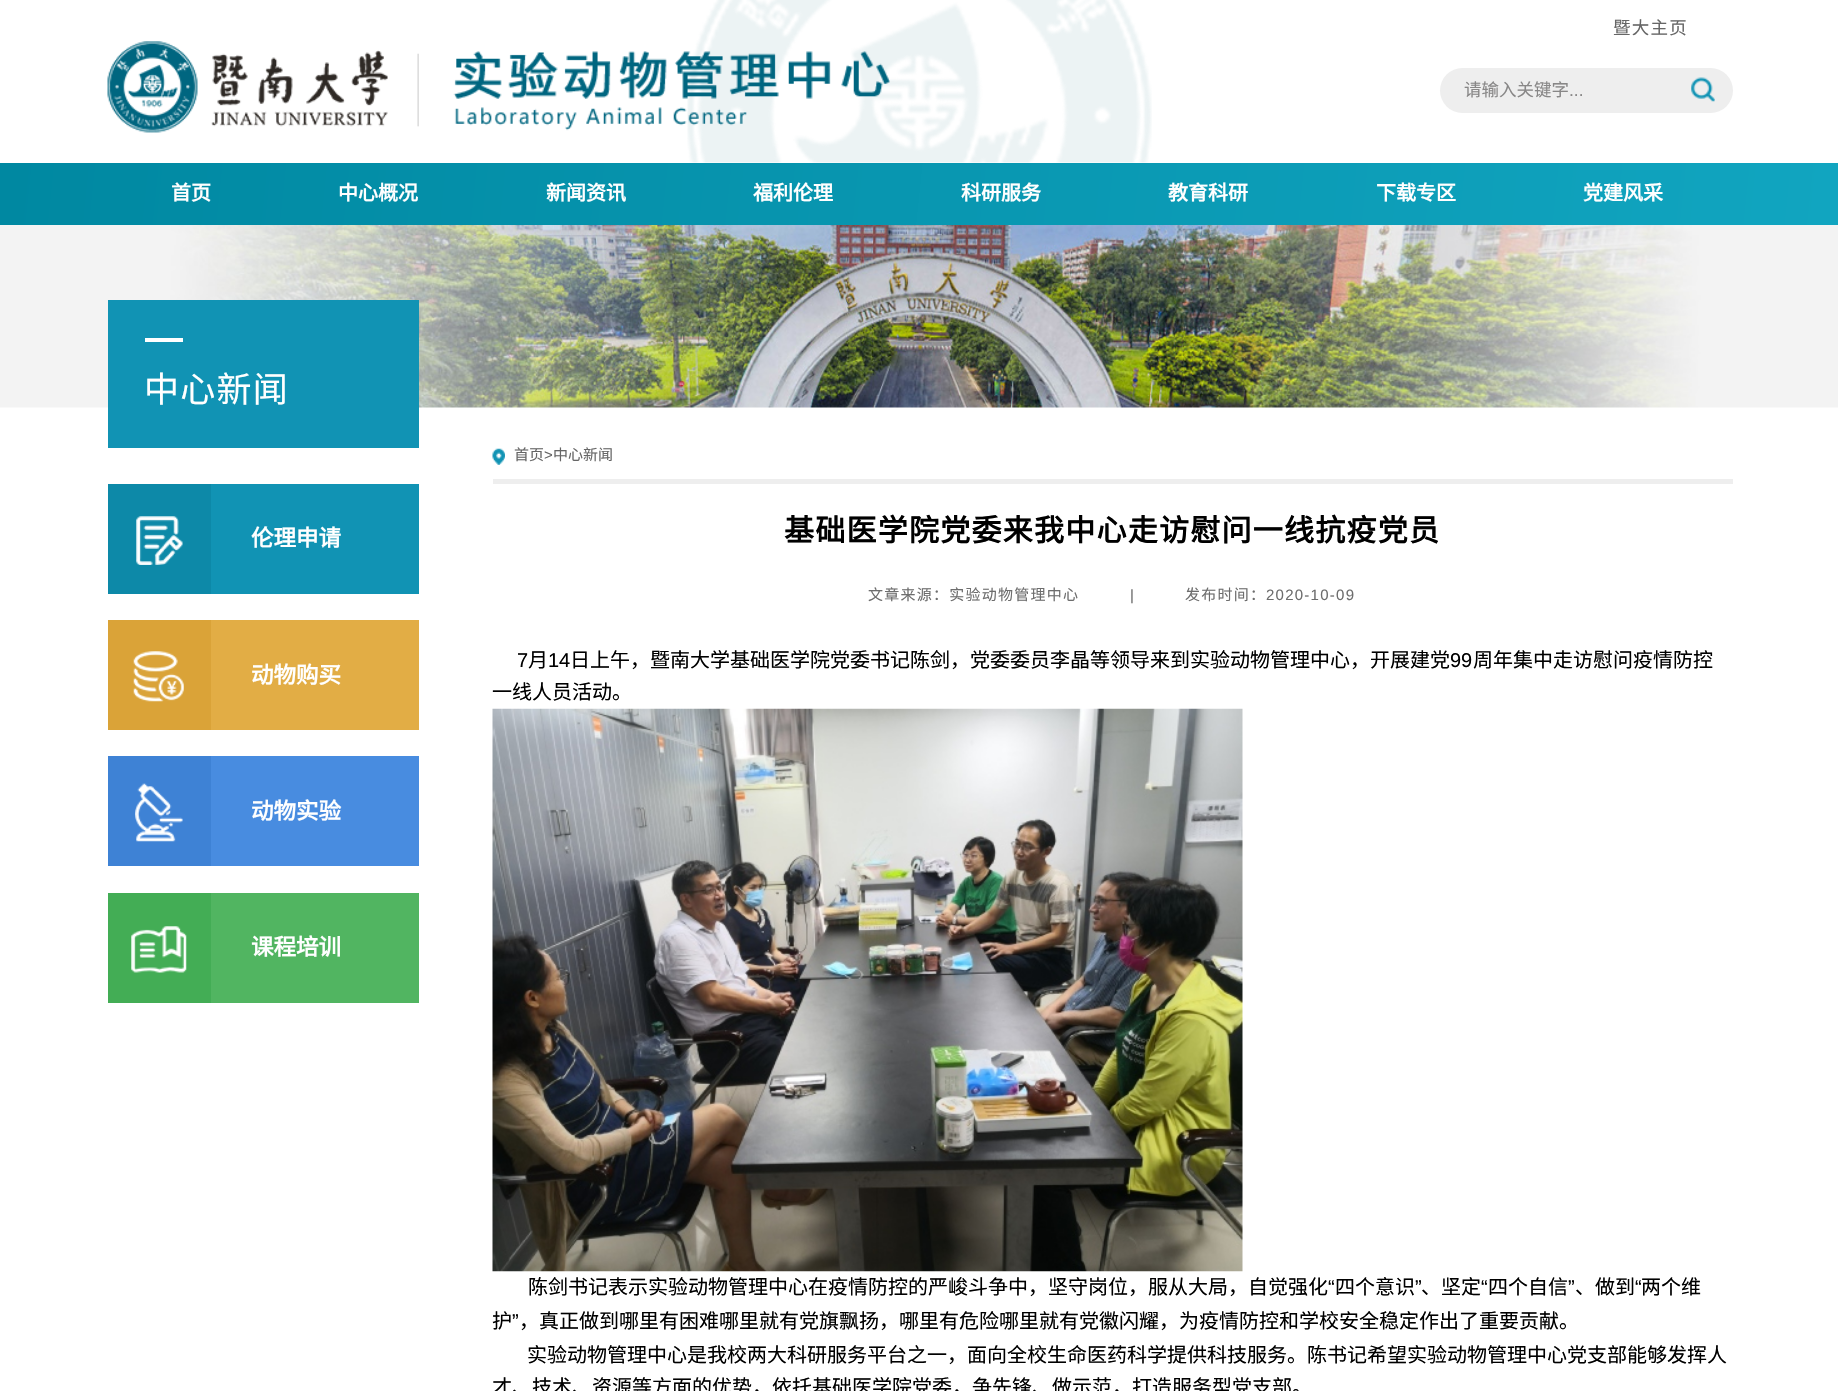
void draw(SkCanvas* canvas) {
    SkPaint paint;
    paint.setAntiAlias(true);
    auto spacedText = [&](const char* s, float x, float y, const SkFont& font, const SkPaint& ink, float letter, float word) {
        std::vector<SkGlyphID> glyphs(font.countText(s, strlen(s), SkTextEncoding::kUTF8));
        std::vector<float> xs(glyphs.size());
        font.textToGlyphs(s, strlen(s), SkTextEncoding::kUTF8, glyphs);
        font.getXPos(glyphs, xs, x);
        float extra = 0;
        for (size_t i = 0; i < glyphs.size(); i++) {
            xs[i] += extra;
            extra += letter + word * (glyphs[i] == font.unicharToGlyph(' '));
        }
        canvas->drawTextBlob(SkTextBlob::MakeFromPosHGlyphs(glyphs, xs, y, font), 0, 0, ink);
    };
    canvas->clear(0xFFFFFFFF);
    canvas->drawImageRect(SkImages::DeferredFromEncodedData(SkData::MakeFromFileName("img1.png")), SkRect::MakeXYWH(687, 0, 465, 163), SkSamplingOptions());
    SkFont font1(fontMgr->matchFamilyStyle("Noto Sans CJK SC", SkFontStyle::Normal()), 17.5f);
    font1.setSubpixel(true);
    paint.setColor(0xFF666666);
    spacedText("暨大主页", 1613, 34, font1, paint, 1.25f, 0);
    canvas->drawImageRect(SkImages::DeferredFromEncodedData(SkData::MakeFromFileName("img2.png")), SkRect::MakeXYWH(107, 41, 783, 92), SkSamplingOptions());
    paint.setColor(0xFFEEEEEE);
    canvas->drawRoundRect(SkRect::MakeXYWH(1440, 68, 293, 45), 22.5f, 22.5f, paint);
    paint.setColor(0xFF888787);
    canvas->drawString("请输入关键字", 1464, 96, font1, paint);
    SkFont font2(fontMgr->matchFamilyStyle("Liberation Sans", SkFontStyle::Normal()), 17.5f);
    font2.setSubpixel(true);
    canvas->drawString("...", 1569, 96, font2, paint);
    canvas->drawImageRect(SkImages::DeferredFromEncodedData(SkData::MakeFromFileName("img3.png")), SkRect::MakeXYWH(1691, 77, 24, 25), SkSamplingOptions());
    {
        const SkColor colors[] = {0xFF0088A1, 0xFF11A5C0};
        const float stops[] = {0, 1};
        const SkPoint ends[] = {{6.8f, 98}, {1832, 290}};
        paint.setShader(SkGradientShader::MakeLinear(ends, colors, stops, 2, SkTileMode::kClamp));
        paint.setAlpha(255);
    }
    canvas->drawRect(SkRect::MakeXYWH(0, 163, 1838, 62), paint);
    SkFont font3(fontMgr->matchFamilyStyle("Noto Sans CJK SC", SkFontStyle::Bold()), 20);
    font3.setSubpixel(true);
    paint.setShader(nullptr);
    paint.setColor(0xFFFFFFFF);
    canvas->drawString("首页", 171, 200, font3, paint);
    canvas->drawString("中心概况", 338, 200, font3, paint);
    canvas->drawString("新闻资讯", 546, 200, font3, paint);
    canvas->drawString("福利伦理", 753, 200, font3, paint);
    canvas->drawString("科研服务", 961, 200, font3, paint);
    canvas->drawString("教育科研", 1168, 200, font3, paint);
    canvas->drawString("下载专区", 1376, 200, font3, paint);
    canvas->drawString("党建风采", 1583, 200, font3, paint);
    canvas->drawImageRect(SkImages::DeferredFromEncodedData(SkData::MakeFromFileName("img4.png")), SkRect::MakeXYWH(0, 225, 1838, 183), SkSamplingOptions());
    paint.setColor(0xFF1193B4);
    canvas->drawRect(SkRect::MakeXYWH(108, 300, 311, 148), paint);
    paint.setColor(0xFFFFFFFF);
    canvas->drawRect(SkRect::MakeXYWH(145, 338, 38, 4), paint);
    SkFont font4(fontMgr->matchFamilyStyle("Noto Sans CJK SC", SkFontStyle::Normal()), 35);
    font4.setSubpixel(true);
    spacedText("中心新闻", 144, 402, font4, paint, 1.25f, 0);
    paint.setColor(0xFF0D89A8);
    canvas->drawRect(SkRect::MakeXYWH(108, 484, 103, 110), paint);
    canvas->drawImageRect(SkImages::DeferredFromEncodedData(SkData::MakeFromFileName("img5.png")), SkRect::MakeXYWH(136, 516, 47, 49), SkSamplingOptions());
    paint.setColor(0xFF1193B4);
    canvas->drawRect(SkRect::MakeXYWH(211, 484, 208, 110), paint);
    SkFont font5(fontMgr->matchFamilyStyle("Noto Sans CJK SC", SkFontStyle::Bold()), 22.5f);
    font5.setSubpixel(true);
    paint.setColor(0xFFFFFFFF);
    canvas->drawString("伦理申请", 251, 546, font5, paint);
    paint.setColor(0xFFDAA338);
    canvas->drawRect(SkRect::MakeXYWH(108, 620, 103, 110), paint);
    canvas->drawImageRect(SkImages::DeferredFromEncodedData(SkData::MakeFromFileName("img6.png")), SkRect::MakeXYWH(133, 651, 51, 51), SkSamplingOptions());
    paint.setColor(0xFFE2AD45);
    canvas->drawRect(SkRect::MakeXYWH(211, 620, 208, 110), paint);
    paint.setColor(0xFFFFFFFF);
    canvas->drawString("动物购买", 251, 683, font5, paint);
    paint.setColor(0xFF3E82D5);
    canvas->drawRect(SkRect::MakeXYWH(108, 756, 103, 110), paint);
    canvas->drawImageRect(SkImages::DeferredFromEncodedData(SkData::MakeFromFileName("img7.png")), SkRect::MakeXYWH(135, 783, 48, 59), SkSamplingOptions());
    paint.setColor(0xFF488CE0);
    canvas->drawRect(SkRect::MakeXYWH(211, 756, 208, 110), paint);
    paint.setColor(0xFFFFFFFF);
    canvas->drawString("动物实验", 251, 819, font5, paint);
    paint.setColor(0xFF43AD55);
    canvas->drawRect(SkRect::MakeXYWH(108, 893, 103, 110), paint);
    canvas->drawImageRect(SkImages::DeferredFromEncodedData(SkData::MakeFromFileName("img8.png")), SkRect::MakeXYWH(131, 926, 56, 47), SkSamplingOptions());
    paint.setColor(0xFF51B561);
    canvas->drawRect(SkRect::MakeXYWH(211, 893, 208, 110), paint);
    paint.setColor(0xFFFFFFFF);
    canvas->drawString("课程培训", 251, 955, font5, paint);
    canvas->drawImageRect(SkImages::DeferredFromEncodedData(SkData::MakeFromFileName("img9.png")), SkRect::MakeXYWH(492, 448, 13, 17), SkSamplingOptions());
    paint.setColor(0xFFEEEEEE);
    canvas->drawRect(SkRect::MakeXYWH(493, 479, 1240, 5), paint);
    SkFont font6(fontMgr->matchFamilyStyle("Noto Sans CJK SC", SkFontStyle::Normal()), 15);
    font6.setSubpixel(true);
    paint.setColor(0xFF666666);
    canvas->drawString("首页", 514, 460, font6, paint);
    SkFont font7(fontMgr->matchFamilyStyle("Liberation Sans", SkFontStyle::Normal()), 15);
    font7.setSubpixel(true);
    canvas->drawString(">", 544, 460, font7, paint);
    canvas->drawString("中心新闻", 553, 460, font6, paint);
    SkFont font8(fontMgr->matchFamilyStyle("Noto Sans CJK SC", SkFontStyle::Bold()), 30);
    font8.setSubpixel(true);
    paint.setColor(0xFF000000);
    spacedText("基础医学院党委来我中心走访慰问一线抗疫党员", 784, 541, font8, paint, 1.25f, 0);
    paint.setColor(0xFF6D6D6D);
    spacedText("文章来源：实验动物管理中心", 868, 600, font6, paint, 1.25f, 0);
    spacedText("|", 1130, 600, font7, paint, 1.25f, 0);
    spacedText("发布时间：", 1185, 600, font6, paint, 1.25f, 0);
    spacedText("2020-10-09", 1266, 600, font7, paint, 1.25f, 0);
    SkFont font9(fontMgr->matchFamilyStyle("Liberation Sans", SkFontStyle::Normal()), 20);
    font9.setSubpixel(true);
    paint.setColor(0xFF000000);
    canvas->drawString("7", 517, 667, font9, paint);
    SkFont font10(fontMgr->matchFamilyStyle("Noto Sans CJK SC", SkFontStyle::Normal()), 20);
    font10.setSubpixel(true);
    canvas->drawString("月", 528, 667, font10, paint);
    canvas->drawString("14", 548, 667, font9, paint);
    canvas->drawString("日上午，暨南大学基础医学院党委书记陈剑，党委委员李晶等领导来到实验动物管理中心，开展建党", 570, 667, font10, paint);
    canvas->drawString("99", 1450, 667, font9, paint);
    canvas->drawString("周年集中走访慰问疫情防控", 1473, 667, font10, paint);
    canvas->drawString("一线人员活动。", 492, 699, font10, paint);
    canvas->drawImageRect(SkImages::DeferredFromEncodedData(SkData::MakeFromFileName("img10.png")), SkRect::MakeXYWH(492, 708, 751, 564), SkSamplingOptions());
    canvas->drawString("陈剑书记表示实验动物管理中心在疫情防控的严峻斗争中，坚守岗位，服从大局，自觉强化", 528, 1294, font10, paint);
    canvas->drawString("“", 1328, 1294, font9, paint);
    canvas->drawString("四个意识", 1335, 1294, font10, paint);
    canvas->drawString("”", 1415, 1294, font9, paint);
    canvas->drawString("、坚定", 1421, 1294, font10, paint);
    canvas->drawString("“", 1481, 1294, font9, paint);
    canvas->drawString("四个自信", 1488, 1294, font10, paint);
    canvas->drawString("”", 1568, 1294, font9, paint);
    canvas->drawString("、做到", 1575, 1294, font10, paint);
    canvas->drawString("“", 1635, 1294, font9, paint);
    canvas->drawString("两个维", 1641, 1294, font10, paint);
    canvas->drawString("护", 492, 1328, font10, paint);
    canvas->drawString("”", 512, 1328, font9, paint);
    canvas->drawString("，真正做到哪里有困难哪里就有党旗飘扬，哪里有危险哪里就有党徽闪耀，为疫情防控和学校安全稳定作出了重要贡献。", 519, 1328, font10, paint);
    canvas->drawString("实验动物管理中心是我校两大科研服务平台之一，面向全校生命医药科学提供科技服务。陈书记希望实验动物管理中心党支部能够发挥人", 527, 1362, font10, paint);
    canvas->drawString("才、技术、资源等方面的优势，依托基础医学院党委，争先锋、做示范，打造服务型党支部。", 492, 1394, font10, paint);
}
